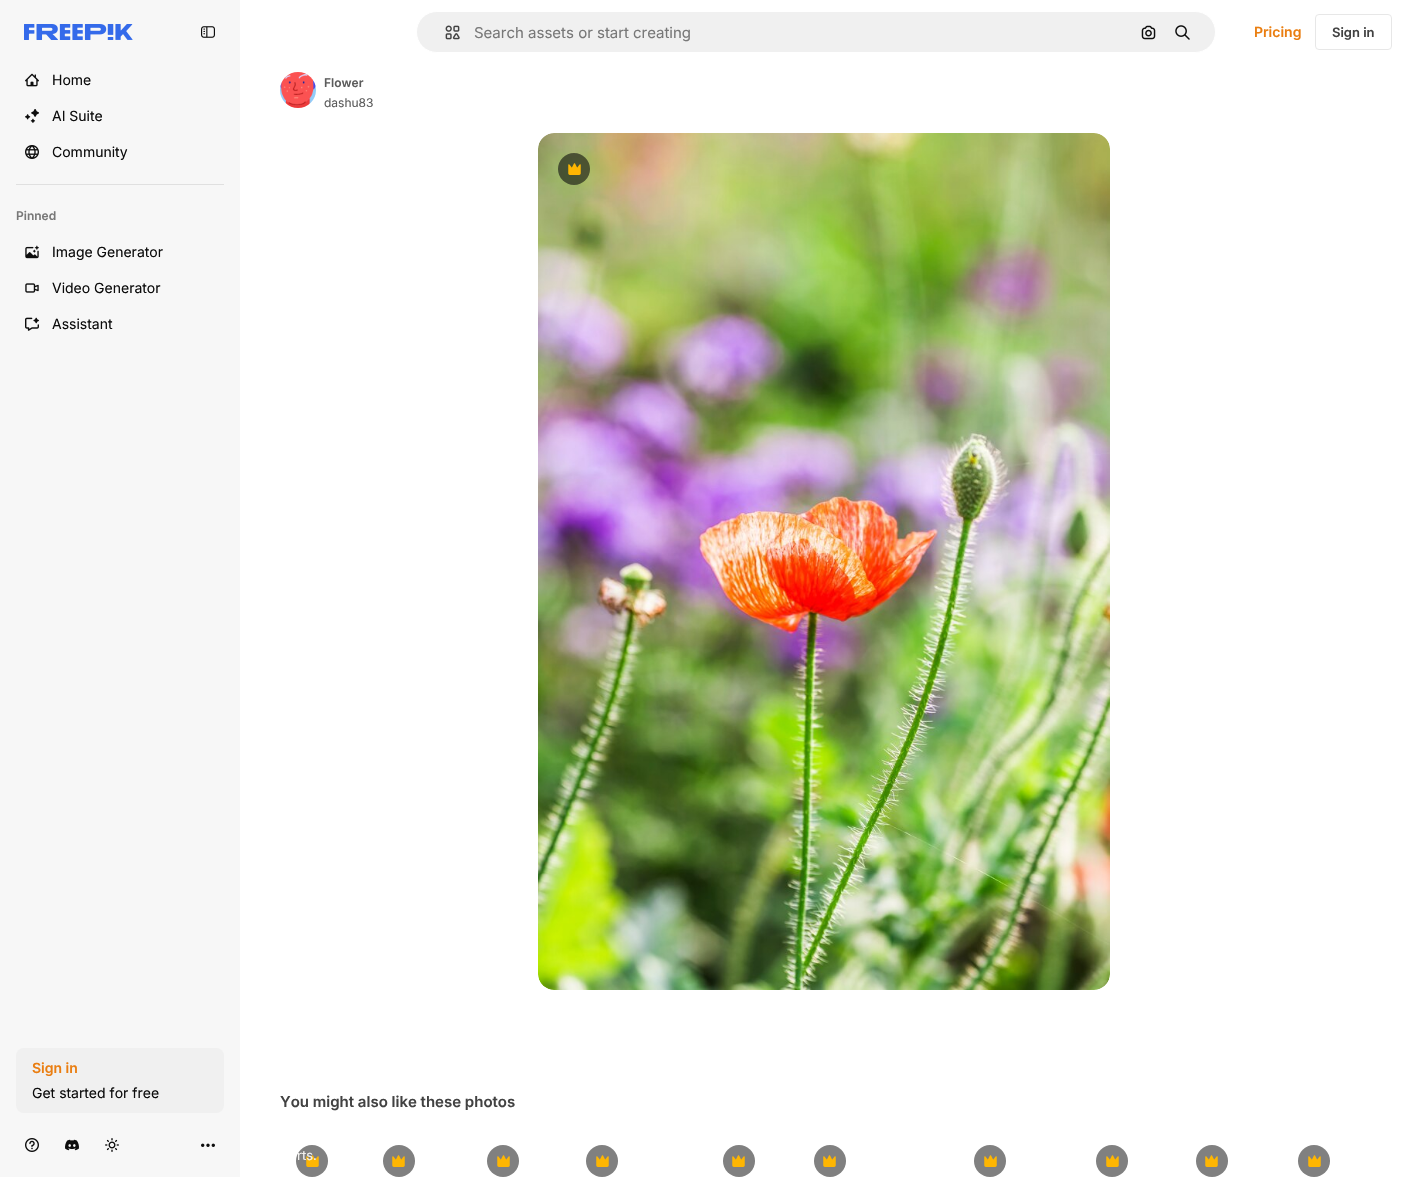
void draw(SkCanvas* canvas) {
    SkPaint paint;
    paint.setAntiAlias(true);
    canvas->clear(0xFFFFFFFF);
    paint.setColor(0xFFF7F7F7);
    canvas->drawRect(SkRect::MakeXYWH(0, 0, 240, 1177), paint);
    canvas->drawImageRect(SkImages::DeferredFromEncodedData(SkData::MakeFromFileName("img1.png")), SkRect::MakeXYWH(24, 24, 109, 16), SkSamplingOptions());
    canvas->drawImageRect(SkImages::DeferredFromEncodedData(SkData::MakeFromFileName("img2.png")), SkRect::MakeXYWH(201, 26, 14, 12), SkSamplingOptions());
    canvas->drawImageRect(SkImages::DeferredFromEncodedData(SkData::MakeFromFileName("img3.png")), SkRect::MakeXYWH(25, 73, 14, 14), SkSamplingOptions());
    SkFont font1(fontMgr->matchFamilyStyle("Inter", SkFontStyle::Normal()), 14);
    font1.setSubpixel(true);
    paint.setColor(0xFF0D0D0D);
    canvas->drawString("Home", 52, 85, font1, paint);
    canvas->drawImageRect(SkImages::DeferredFromEncodedData(SkData::MakeFromFileName("img4.png")), SkRect::MakeXYWH(25, 109, 14, 14), SkSamplingOptions());
    canvas->drawString("AI Suite", 52, 121, font1, paint);
    canvas->drawImageRect(SkImages::DeferredFromEncodedData(SkData::MakeFromFileName("img5.png")), SkRect::MakeXYWH(25, 145, 14, 14), SkSamplingOptions());
    canvas->drawString("Community", 52, 157, font1, paint);
    paint.setColor(0xFFE0E0E0);
    canvas->drawRect(SkRect::MakeXYWH(16, 184, 208, 1), paint);
    SkFont font2(fontMgr->matchFamilyStyle("Inter", SkFontStyle(600, SkFontStyle::kNormal_Width, SkFontStyle::kUpright_Slant)), 12);
    font2.setSubpixel(true);
    paint.setColor(0xFF787878);
    canvas->drawString("Pinned", 16, 220, font2, paint);
    canvas->drawImageRect(SkImages::DeferredFromEncodedData(SkData::MakeFromFileName("img6.png")), SkRect::MakeXYWH(25, 245, 14, 14), SkSamplingOptions());
    paint.setColor(0xFF0D0D0D);
    canvas->drawString("Image Generator", 52, 257, font1, paint);
    canvas->drawImageRect(SkImages::DeferredFromEncodedData(SkData::MakeFromFileName("img7.png")), SkRect::MakeXYWH(25, 283, 14, 10), SkSamplingOptions());
    canvas->drawString("Video Generator", 52, 293, font1, paint);
    canvas->drawImageRect(SkImages::DeferredFromEncodedData(SkData::MakeFromFileName("img8.png")), SkRect::MakeXYWH(25, 317, 14, 14), SkSamplingOptions());
    canvas->drawString("Assistant", 52, 329, font1, paint);
    paint.setColor(0xFFF0F0F0);
    canvas->drawRoundRect(SkRect::MakeXYWH(16, 1048, 208, 65), 8, 8, paint);
    SkFont font3(fontMgr->matchFamilyStyle("Inter", SkFontStyle(600, SkFontStyle::kNormal_Width, SkFontStyle::kUpright_Slant)), 14);
    font3.setSubpixel(true);
    paint.setColor(0xFFEA7E11);
    canvas->drawString("Sign in", 32, 1073, font3, paint);
    paint.setColor(0xFF0D0D0D);
    canvas->drawString("Get started for free", 32, 1098, font1, paint);
    canvas->drawImageRect(SkImages::DeferredFromEncodedData(SkData::MakeFromFileName("img9.png")), SkRect::MakeXYWH(25, 1138, 14, 14), SkSamplingOptions());
    canvas->drawImageRect(SkImages::DeferredFromEncodedData(SkData::MakeFromFileName("img10.png")), SkRect::MakeXYWH(65, 1139, 14, 12), SkSamplingOptions());
    canvas->drawImageRect(SkImages::DeferredFromEncodedData(SkData::MakeFromFileName("img11.png")), SkRect::MakeXYWH(105, 1138, 14, 14), SkSamplingOptions());
    canvas->drawImageRect(SkImages::DeferredFromEncodedData(SkData::MakeFromFileName("img12.png")), SkRect::MakeXYWH(201, 1143, 14, 4), SkSamplingOptions());
    paint.setColor(0xFFF0F0F0);
    canvas->drawRoundRect(SkRect::MakeXYWH(416.5f, 11.5f, 799, 41), 20.5f, 20.5f, paint);
    paint.setStyle(SkPaint::kStroke_Style);
    paint.setStrokeWidth(1);
    paint.setColor(0xFFFFFFFF);
    canvas->drawRoundRect(SkRect::MakeXYWH(416.5f, 11.5f, 799, 41), 20.5f, 20.5f, paint);
    canvas->drawImageRect(SkImages::DeferredFromEncodedData(SkData::MakeFromFileName("img13.png")), SkRect::MakeXYWH(445, 25, 15, 15), SkSamplingOptions());
    SkFont font4(fontMgr->matchFamilyStyle("Inter", SkFontStyle::Normal()), 15);
    font4.setSubpixel(true);
    paint.setStyle(SkPaint::kFill_Style);
    paint.setColor(0xFF787878);
    canvas->drawString("Search assets or start creating", 474, 38, font4, paint);
    canvas->drawImageRect(SkImages::DeferredFromEncodedData(SkData::MakeFromFileName("img14.png")), SkRect::MakeXYWH(1141, 25, 15, 15), SkSamplingOptions());
    canvas->drawImageRect(SkImages::DeferredFromEncodedData(SkData::MakeFromFileName("img15.png")), SkRect::MakeXYWH(1175, 25, 15, 15), SkSamplingOptions());
    paint.setColor(0xFFEA7E11);
    canvas->drawString("Pricing", 1254, 37, font3, paint);
    paint.setStyle(SkPaint::kStroke_Style);
    paint.setColor(0xFFE7E7E7);
    canvas->drawRoundRect(SkRect::MakeXYWH(1315.5f, 14.5f, 76, 35), 3.5f, 3.5f, paint);
    SkFont font5(fontMgr->matchFamilyStyle("Inter", SkFontStyle(600, SkFontStyle::kNormal_Width, SkFontStyle::kUpright_Slant)), 13);
    font5.setSubpixel(true);
    paint.setStyle(SkPaint::kFill_Style);
    paint.setColor(0xFF424242);
    canvas->drawString("Sign in", 1332, 37, font5, paint);
    canvas->drawImageRect(SkImages::DeferredFromEncodedData(SkData::MakeFromFileName("img16.png")), SkRect::MakeXYWH(280, 72, 36, 36), SkSamplingOptions());
    paint.setColor(0xFF5C5C5C);
    canvas->drawString("Flower", 324, 87, font2, paint);
    SkFont font6(fontMgr->matchFamilyStyle("Inter", SkFontStyle::Normal()), 12);
    font6.setSubpixel(true);
    canvas->drawString("dashu83", 324, 107, font6, paint);
    canvas->drawImageRect(SkImages::DeferredFromEncodedData(SkData::MakeFromFileName("img17.png")), SkRect::MakeXYWH(538, 133, 572, 857), SkSamplingOptions());
    paint.setColor(0x990D0D0D);
    canvas->drawCircle(574, 169, 16, paint);
    canvas->drawImageRect(SkImages::DeferredFromEncodedData(SkData::MakeFromFileName("img18.png")), SkRect::MakeXYWH(568, 163, 13, 12), SkSamplingOptions());
    SkFont font7(fontMgr->matchFamilyStyle("Inter", SkFontStyle(600, SkFontStyle::kNormal_Width, SkFontStyle::kUpright_Slant)), 15);
    font7.setSubpixel(true);
    paint.setColor(0xFF424242);
    canvas->drawString("You might also like these photos", 280, 1107, font7, paint);
    paint.setColor(0xFF808080);
    canvas->drawCircle(312, 1161, 16, paint);
    canvas->drawImageRect(SkImages::DeferredFromEncodedData(SkData::MakeFromFileName("img19.png")), SkRect::MakeXYWH(306, 1155, 13, 12), SkSamplingOptions());
    canvas->drawCircle(399, 1161, 16, paint);
    canvas->drawImageRect(SkImages::DeferredFromEncodedData(SkData::MakeFromFileName("img19.png")), SkRect::MakeXYWH(392, 1155, 13, 12), SkSamplingOptions());
    canvas->drawCircle(503, 1161, 16, paint);
    canvas->drawImageRect(SkImages::DeferredFromEncodedData(SkData::MakeFromFileName("img19.png")), SkRect::MakeXYWH(497, 1155, 13, 12), SkSamplingOptions());
    canvas->drawCircle(602, 1161, 16, paint);
    canvas->drawImageRect(SkImages::DeferredFromEncodedData(SkData::MakeFromFileName("img19.png")), SkRect::MakeXYWH(596, 1155, 13, 12), SkSamplingOptions());
    canvas->drawCircle(739, 1161, 16, paint);
    canvas->drawImageRect(SkImages::DeferredFromEncodedData(SkData::MakeFromFileName("img19.png")), SkRect::MakeXYWH(732, 1155, 13, 12), SkSamplingOptions());
    canvas->drawCircle(830, 1161, 16, paint);
    canvas->drawImageRect(SkImages::DeferredFromEncodedData(SkData::MakeFromFileName("img19.png")), SkRect::MakeXYWH(823, 1155, 13, 12), SkSamplingOptions());
    canvas->drawCircle(990, 1161, 16, paint);
    canvas->drawImageRect(SkImages::DeferredFromEncodedData(SkData::MakeFromFileName("img19.png")), SkRect::MakeXYWH(984, 1155, 13, 12), SkSamplingOptions());
    canvas->drawCircle(1112, 1161, 16, paint);
    canvas->drawImageRect(SkImages::DeferredFromEncodedData(SkData::MakeFromFileName("img19.png")), SkRect::MakeXYWH(1106, 1155, 13, 12), SkSamplingOptions());
    canvas->drawCircle(1212, 1161, 16, paint);
    canvas->drawImageRect(SkImages::DeferredFromEncodedData(SkData::MakeFromFileName("img19.png")), SkRect::MakeXYWH(1205, 1155, 13, 12), SkSamplingOptions());
    canvas->drawCircle(1314, 1161, 16, paint);
    canvas->drawImageRect(SkImages::DeferredFromEncodedData(SkData::MakeFromFileName("img19.png")), SkRect::MakeXYWH(1308, 1155, 13, 12), SkSamplingOptions());
    SkFont font8(fontMgr->matchFamilyStyle("Inter", SkFontStyle::Normal()), 13);
    font8.setSubpixel(true);
    paint.setColor(0xFFF3F2F0);
    canvas->drawString("rts.", 297, 1160, font8, paint);
}
